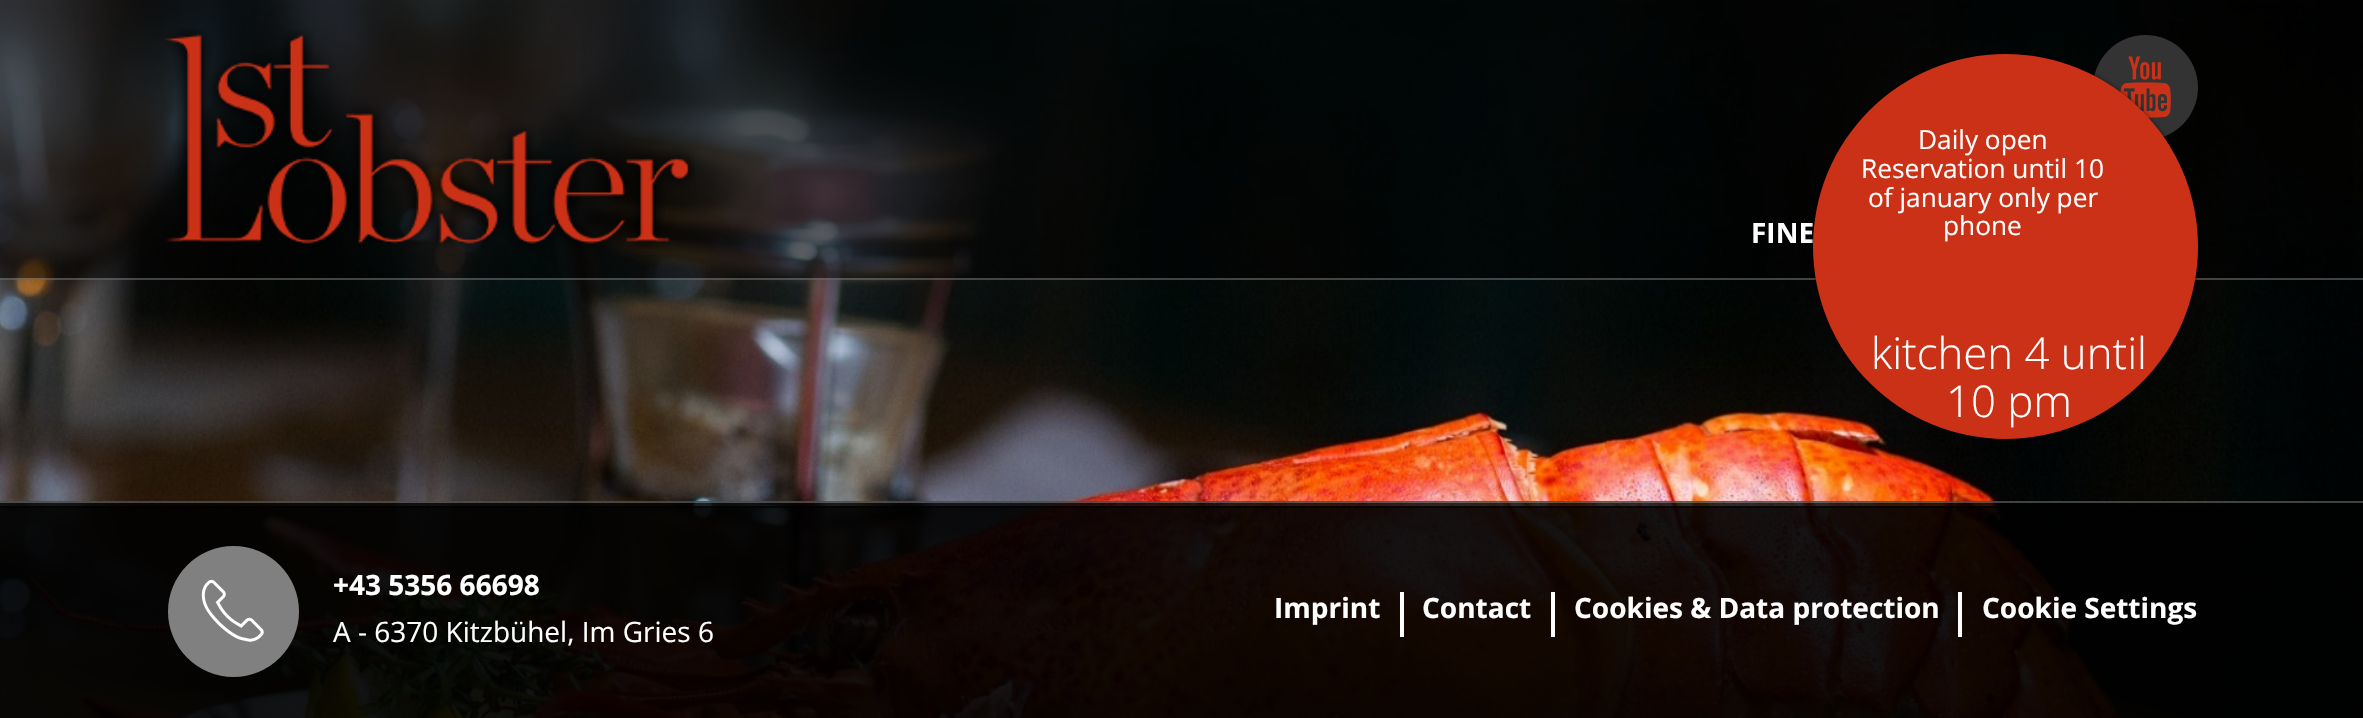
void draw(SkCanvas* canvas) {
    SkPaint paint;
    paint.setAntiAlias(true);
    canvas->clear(0xFFFFFFFF);
    canvas->drawImageRect(SkImages::DeferredFromEncodedData(SkData::MakeFromFileName("img1.png")), SkRect::MakeXYWH(0, 0, 2363, 718), SkSamplingOptions());
    paint.setColor(0x80000000);
    canvas->drawRect(SkRect::MakeXYWH(0, 0, 2353, 280), paint);
    paint.setColor(0x40FFFFFF);
    canvas->drawRect(SkRect::MakeXYWH(0, 278, 2363, 2), paint);
    canvas->drawImageRect(SkImages::DeferredFromEncodedData(SkData::MakeFromFileName("img2.png")), SkRect::MakeXYWH(164, 28, 531, 221), SkSamplingOptions());
    paint.setColor(0xFF333333);
    canvas->drawCircle(2145.5f, 87.5f, 52.5f, paint);
    canvas->drawImageRect(SkImages::DeferredFromEncodedData(SkData::MakeFromFileName("img3.png")), SkRect::MakeXYWH(2120, 56, 51, 62), SkSamplingOptions());
    SkFont font1(fontMgr->matchFamilyStyle("Open Sans", SkFontStyle::Bold()), 28);
    font1.setSubpixel(true);
    paint.setColor(0xFFFFFFFF);
    canvas->drawString("FINE", 1751, 243, font1, paint);
    paint.setColor(0x80000000);
    paint.setMaskFilter(SkMaskFilter::MakeBlur(kNormal_SkBlurStyle, 2.5f));
    canvas->drawRoundRect(SkRect::MakeXYWH(1813, 54, 385, 385), 192.5f, 192.5f, paint);
    paint.setMaskFilter(nullptr);
    paint.setColor(0xFFCB3117);
    canvas->drawCircle(2005.5f, 246.5f, 192.5f, paint);
    SkFont font2(fontMgr->matchFamilyStyle("Open Sans", SkFontStyle::Normal()), 26.25f);
    font2.setSubpixel(true);
    paint.setColor(0xFFFFFFFF);
    canvas->drawString("Daily open", 1918, 149, font2, paint);
    canvas->drawString("Reservation until 10", 1861, 178, font2, paint);
    canvas->drawString("of january only per", 1868, 207, font2, paint);
    canvas->drawString("phone", 1943, 235, font2, paint);
    SkFont font3(fontMgr->matchFamilyStyle("Open Sans", SkFontStyle(300, SkFontStyle::kNormal_Width, SkFontStyle::kUpright_Slant)), 43.75f);
    font3.setSubpixel(true);
    canvas->drawString("kitchen 4 until", 1871, 369, font3, paint);
    canvas->drawString("10 pm", 1946, 417, font3, paint);
    paint.setColor(0x99000000);
    canvas->drawRect(SkRect::MakeXYWH(0, 506, 2363, 212), paint);
    canvas->drawRect(SkRect::MakeXYWH(0, 506, 1999, 2), paint);
    paint.setColor(0xCC000000);
    canvas->drawRect(SkRect::MakeXYWH(0, 501, 2363, 217), paint);
    paint.setColor(0x40FFFFFF);
    canvas->drawRect(SkRect::MakeXYWH(0, 501, 2363, 2), paint);
    paint.setColor(0xFF808080);
    canvas->drawCircle(233.5f, 611.5f, 65.5f, paint);
    canvas->drawImageRect(SkImages::DeferredFromEncodedData(SkData::MakeFromFileName("img4.png")), SkRect::MakeXYWH(201, 579, 63, 63), SkSamplingOptions());
    paint.setColor(0xFFFFFFFF);
    canvas->drawString("+43 5356 66698", 333, 595, font1, paint);
    SkFont font4(fontMgr->matchFamilyStyle("Open Sans", SkFontStyle::Normal()), 28);
    font4.setSubpixel(true);
    canvas->drawString("A - 6370 Kitzbühel, Im Gries 6", 333, 642, font4, paint);
    canvas->drawString("Imprint", 1274, 618, font1, paint);
    canvas->drawRect(SkRect::MakeXYWH(1400, 592, 4, 45), paint);
    canvas->drawString("Contact", 1422, 618, font1, paint);
    canvas->drawRect(SkRect::MakeXYWH(1551, 592, 4, 45), paint);
    canvas->drawString("Cookies & Data protection", 1574, 618, font1, paint);
    canvas->drawRect(SkRect::MakeXYWH(1958, 592, 4, 45), paint);
    canvas->drawString("Cookie Settings", 1982, 618, font1, paint);
}
